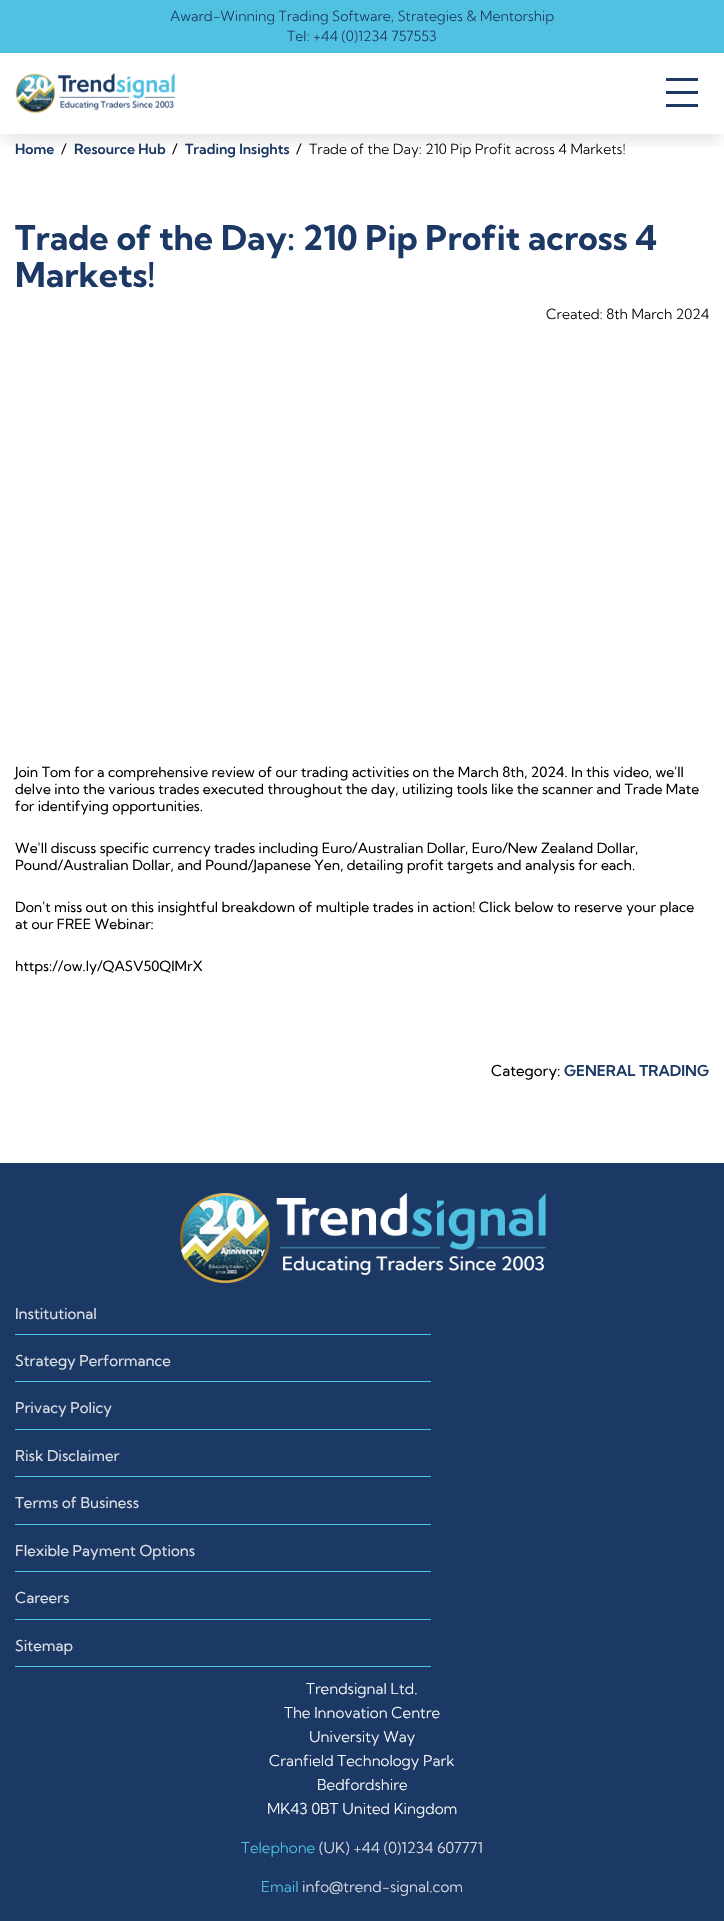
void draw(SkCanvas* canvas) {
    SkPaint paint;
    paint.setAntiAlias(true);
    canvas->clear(0xFFFFFFFF);
    canvas->save();
    canvas->clipRect(SkRect::MakeXYWH(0, 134, 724, 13));
    paint.setColor(0x1A000000);
    paint.setMaskFilter(SkMaskFilter::MakeBlur(kNormal_SkBlurStyle, 7.5f));
    canvas->drawRect(SkRect::MakeXYWH(3, 13, 718, 128), paint);
    paint.setMaskFilter(nullptr);
    canvas->restore();
    paint.setColor(0xFF51C1E2);
    canvas->drawRect(SkRect::MakeXYWH(0, 0, 724, 53), paint);
    SkFont font1(fontMgr->matchFamilyStyle("Kumbh Sans", SkFontStyle(300, SkFontStyle::kNormal_Width, SkFontStyle::kUpright_Slant)), 14);
    font1.setSubpixel(true);
    paint.setColor(0xFF1C3965);
    canvas->drawString("Award-Winning Trading Software, Strategies & Mentorship", 170, 21, font1, paint);
    canvas->drawString("Tel: +44 (0)1234 757553", 287, 41, font1, paint);
    canvas->drawImageRect(SkImages::DeferredFromEncodedData(SkData::MakeFromFileName("img1.png")), SkRect::MakeXYWH(15, 73, 160, 41), SkSamplingOptions());
    paint.setColor(0xFF1E3A64);
    canvas->drawRect(SkRect::MakeXYWH(666, 78, 32, 3), paint);
    canvas->drawRect(SkRect::MakeXYWH(666, 91, 32, 3), paint);
    canvas->drawRect(SkRect::MakeXYWH(666, 104, 32, 3), paint);
    SkFont font2(fontMgr->matchFamilyStyle("Kumbh Sans", SkFontStyle(600, SkFontStyle::kNormal_Width, SkFontStyle::kUpright_Slant)), 14);
    font2.setSubpixel(true);
    paint.setColor(0xFF1C3965);
    canvas->drawString("Home", 15, 154, font2, paint);
    SkFont font3(fontMgr->matchFamilyStyle("Kumbh Sans", SkFontStyle::Normal()), 14);
    font3.setSubpixel(true);
    paint.setColor(0xFF000000);
    canvas->drawString("/", 61, 154, font3, paint);
    paint.setColor(0xFF1C3965);
    canvas->drawString("Resource Hub", 74, 154, font2, paint);
    paint.setColor(0xFF000000);
    canvas->drawString("/", 172, 154, font3, paint);
    paint.setColor(0xFF1C3965);
    canvas->drawString("Trading Insights", 185, 154, font2, paint);
    paint.setColor(0xFF000000);
    canvas->drawString("/", 296, 154, font3, paint);
    canvas->drawString("Trade of the Day: 210 Pip Profit across 4 Markets!", 309, 154, font1, paint);
    SkFont font4(fontMgr->matchFamilyStyle("Kumbh Sans", SkFontStyle::Bold()), 34);
    font4.setSubpixel(true);
    paint.setColor(0xFF1C3965);
    canvas->drawString("Trade of the Day: 210 Pip Profit across 4", 15, 250, font4, paint);
    canvas->drawString("Markets!", 15, 287, font4, paint);
    paint.setColor(0xFF000000);
    canvas->drawString("Created: 8th March 2024", 546, 319, font1, paint);
    canvas->drawString("Join Tom for a comprehensive review of our trading activities on the March 8th, 2024. In this video, we'll", 15, 777, font3, paint);
    canvas->drawString("delve into the various trades executed throughout the day, utilizing tools like the scanner and Trade Mate", 15, 794, font3, paint);
    canvas->drawString("for identifying opportunities.", 15, 811, font3, paint);
    canvas->drawString("We'll discuss specific currency trades including Euro/Australian Dollar, Euro/New Zealand Dollar,", 15, 853, font3, paint);
    canvas->drawString("Pound/Australian Dollar, and Pound/Japanese Yen, detailing profit targets and analysis for each.", 15, 870, font3, paint);
    canvas->drawString("Don't miss out on this insightful breakdown of multiple trades in action! Click below to reserve your place", 15, 912, font3, paint);
    canvas->drawString("at our FREE Webinar:", 15, 929, font3, paint);
    canvas->drawString("https://ow.ly/QASV50QIMrX", 15, 971, font3, paint);
    SkFont font5(fontMgr->matchFamilyStyle("Kumbh Sans", SkFontStyle::Normal()), 15);
    font5.setSubpixel(true);
    canvas->drawString("Category:", 491, 1076, font5, paint);
    SkFont font6(fontMgr->matchFamilyStyle("Kumbh Sans", SkFontStyle(600, SkFontStyle::kNormal_Width, SkFontStyle::kUpright_Slant)), 15);
    font6.setSubpixel(true);
    paint.setColor(0xFF1C3965);
    canvas->drawString("GENERAL TRADING", 564, 1076, font6, paint);
    canvas->drawRect(SkRect::MakeXYWH(0, 1163, 724, 758), paint);
    canvas->drawImageRect(SkImages::DeferredFromEncodedData(SkData::MakeFromFileName("img2.png")), SkRect::MakeXYWH(180, 1193, 366, 90), SkSamplingOptions());
    paint.setColor(0xFF4DC8E9);
    canvas->drawRect(SkRect::MakeXYWH(15, 1334, 416, 1), paint);
    paint.setColor(0xFFDDE0E6);
    canvas->drawString("Institutional", 15, 1319, font5, paint);
    paint.setColor(0xFF4DC8E9);
    canvas->drawRect(SkRect::MakeXYWH(15, 1381, 416, 1), paint);
    paint.setColor(0xFFDDE0E6);
    canvas->drawString("Strategy Performance", 15, 1366, font5, paint);
    paint.setColor(0xFF4DC8E9);
    canvas->drawRect(SkRect::MakeXYWH(15, 1429, 416, 1), paint);
    paint.setColor(0xFFDDE0E6);
    canvas->drawString("Privacy Policy", 15, 1413, font5, paint);
    paint.setColor(0xFF4DC8E9);
    canvas->drawRect(SkRect::MakeXYWH(15, 1476, 416, 1), paint);
    paint.setColor(0xFFDDE0E6);
    canvas->drawString("Risk Disclaimer", 15, 1461, font5, paint);
    paint.setColor(0xFF4DC8E9);
    canvas->drawRect(SkRect::MakeXYWH(15, 1524, 416, 1), paint);
    paint.setColor(0xFFDDE0E6);
    canvas->drawString("Terms of Business", 15, 1508, font5, paint);
    paint.setColor(0xFF4DC8E9);
    canvas->drawRect(SkRect::MakeXYWH(15, 1571, 416, 1), paint);
    paint.setColor(0xFFDDE0E6);
    canvas->drawString("Flexible Payment Options", 15, 1556, font5, paint);
    paint.setColor(0xFF4DC8E9);
    canvas->drawRect(SkRect::MakeXYWH(15, 1619, 416, 1), paint);
    paint.setColor(0xFFDDE0E6);
    canvas->drawString("Careers", 15, 1603, font5, paint);
    paint.setColor(0xFF4DC8E9);
    canvas->drawRect(SkRect::MakeXYWH(15, 1666, 416, 1), paint);
    paint.setColor(0xFFDDE0E6);
    canvas->drawString("Sitemap", 15, 1651, font5, paint);
    SkFont font7(fontMgr->matchFamilyStyle("Kumbh Sans", SkFontStyle(300, SkFontStyle::kNormal_Width, SkFontStyle::kUpright_Slant)), 15);
    font7.setSubpixel(true);
    paint.setColor(0xFFFFFFFF);
    canvas->drawString("Trendsignal Ltd.", 306, 1694, font7, paint);
    canvas->drawString("The Innovation Centre", 284, 1718, font7, paint);
    canvas->drawString("University Way", 309, 1742, font7, paint);
    canvas->drawString("Cranfield Technology Park", 269, 1766, font7, paint);
    canvas->drawString("Bedfordshire", 317, 1790, font7, paint);
    canvas->drawString("MK43 0BT United Kingdom", 267, 1814, font7, paint);
    paint.setColor(0xFF4DC8E9);
    canvas->drawString("Telephone", 241, 1853, font7, paint);
    paint.setColor(0xFFDDE0E6);
    canvas->drawString("(UK) +44 (0)1234 607771", 319, 1853, font7, paint);
    paint.setColor(0xFF4DC8E9);
    canvas->drawString("Email", 261, 1892, font7, paint);
    paint.setColor(0xFFDDE0E6);
    canvas->drawString("info@trend-signal.com", 302, 1892, font7, paint);
}
